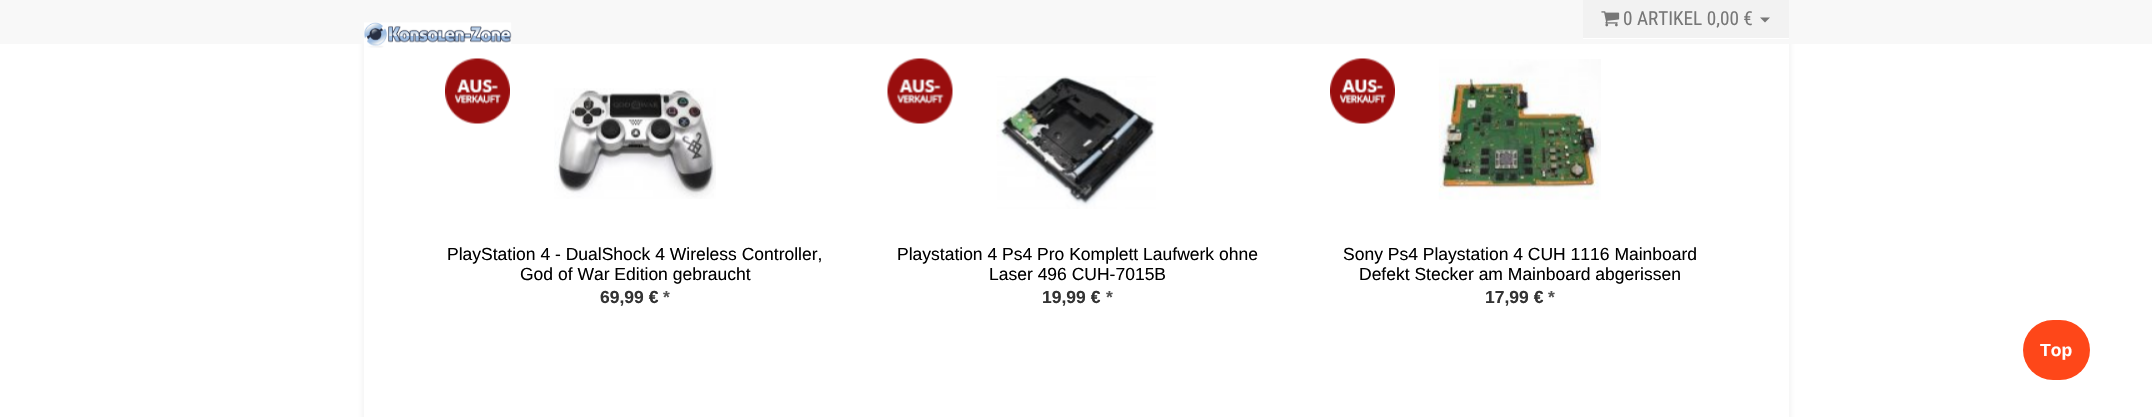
void draw(SkCanvas* canvas) {
    SkPaint paint;
    paint.setAntiAlias(true);
    canvas->clear(0xFFFFFFFF);
    paint.setColor(0x1A6A6A6A);
    paint.setMaskFilter(SkMaskFilter::MakeBlur(kNormal_SkBlurStyle, 3));
    canvas->drawRect(SkRect::MakeXYWH(363, -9, 1427, 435), paint);
    paint.setMaskFilter(nullptr);
    paint.setColor(0xFFF8F8F8);
    canvas->drawRect(SkRect::MakeXYWH(0, 0, 2152, 44), paint);
    paint.setColor(0xFFF2F2F2);
    canvas->drawRect(SkRect::MakeXYWH(1583, 0, 206, 38), paint);
    paint.setColor(0xFFFFFFFF);
    canvas->drawRect(SkRect::MakeXYWH(1583, 38, 206, 1), paint);
    canvas->drawImageRect(SkImages::DeferredFromEncodedData(SkData::MakeFromFileName("img1.png")), SkRect::MakeXYWH(1601, 11, 19, 16), SkSamplingOptions());
    SkFont font1(fontMgr->matchFamilyStyle("Roboto Condensed", SkFontStyle::Normal()), 19.25f);
    font1.setSubpixel(true);
    paint.setColor(0xFF777777);
    canvas->drawString("0 ARTIKEL 0,00 €", 1623, 25, font1, paint);
    canvas->drawPath(SkPathBuilder().moveTo(1760, 17.5f).lineTo(1770, 17.5f).lineTo(1765, 22.5f).close().detach(), paint);
    paint.setColor(0xFFFFFFFF);
    canvas->drawRect(SkRect::MakeXYWH(364, 44, 1425, 373), paint);
    canvas->drawImageRect(SkImages::DeferredFromEncodedData(SkData::MakeFromFileName("img2.png")), SkRect::MakeXYWH(364, 22, 148, 26), SkSamplingOptions());
    canvas->drawImageRect(SkImages::DeferredFromEncodedData(SkData::MakeFromFileName("img3.png")), SkRect::MakeXYWH(445, 58, 65, 66), SkSamplingOptions());
    canvas->drawImageRect(SkImages::DeferredFromEncodedData(SkData::MakeFromFileName("img4.png")), SkRect::MakeXYWH(554, 88, 162, 111), SkSamplingOptions());
    SkFont font2(fontMgr->matchFamilyStyle("Liberation Sans", SkFontStyle::Normal()), 17.5f);
    font2.setSubpixel(true);
    paint.setColor(0xFF000000);
    canvas->drawString("PlayStation 4 - DualShock 4 Wireless Controller,", 447, 260, font2, paint);
    canvas->drawString("God of War Edition gebraucht", 520, 280, font2, paint);
    SkFont font3(fontMgr->matchFamilyStyle("Liberation Sans", SkFontStyle::Bold()), 17.5f);
    font3.setSubpixel(true);
    paint.setColor(0xFF333333);
    canvas->drawString("69,99 €", 600, 303, font3, paint);
    paint.setColor(0xFF555555);
    canvas->drawString("*", 663, 303, font3, paint);
    canvas->drawImageRect(SkImages::DeferredFromEncodedData(SkData::MakeFromFileName("img5.png")), SkRect::MakeXYWH(887, 58, 66, 66), SkSamplingOptions());
    canvas->drawImageRect(SkImages::DeferredFromEncodedData(SkData::MakeFromFileName("img6.png")), SkRect::MakeXYWH(996, 76, 160, 133), SkSamplingOptions());
    paint.setColor(0xFF000000);
    canvas->drawString("Playstation 4 Ps4 Pro Komplett Laufwerk ohne", 897, 260, font2, paint);
    canvas->drawString("Laser 496 CUH-7015B", 989, 280, font2, paint);
    paint.setColor(0xFF333333);
    canvas->drawString("19,99 €", 1042, 303, font3, paint);
    paint.setColor(0xFF555555);
    canvas->drawString("*", 1106, 303, font3, paint);
    canvas->drawImageRect(SkImages::DeferredFromEncodedData(SkData::MakeFromFileName("img3.png")), SkRect::MakeXYWH(1330, 58, 65, 66), SkSamplingOptions());
    canvas->drawImageRect(SkImages::DeferredFromEncodedData(SkData::MakeFromFileName("img7.png")), SkRect::MakeXYWH(1438, 59, 163, 141), SkSamplingOptions());
    paint.setColor(0xFF000000);
    canvas->drawString("Sony Ps4 Playstation 4 CUH 1116 Mainboard", 1343, 260, font2, paint);
    canvas->drawString("Defekt Stecker am Mainboard abgerissen", 1359, 280, font2, paint);
    paint.setColor(0xFF333333);
    canvas->drawString("17,99 €", 1485, 303, font3, paint);
    paint.setColor(0xFF555555);
    canvas->drawString("*", 1548, 303, font3, paint);
    paint.setColor(0xFFFE4719);
    canvas->drawRoundRect(SkRect::MakeXYWH(2023, 320, 67, 60), 30, 30, paint);
    paint.setColor(0xFFFFFFFF);
    canvas->drawString("Top", 2040, 356, font3, paint);
}
